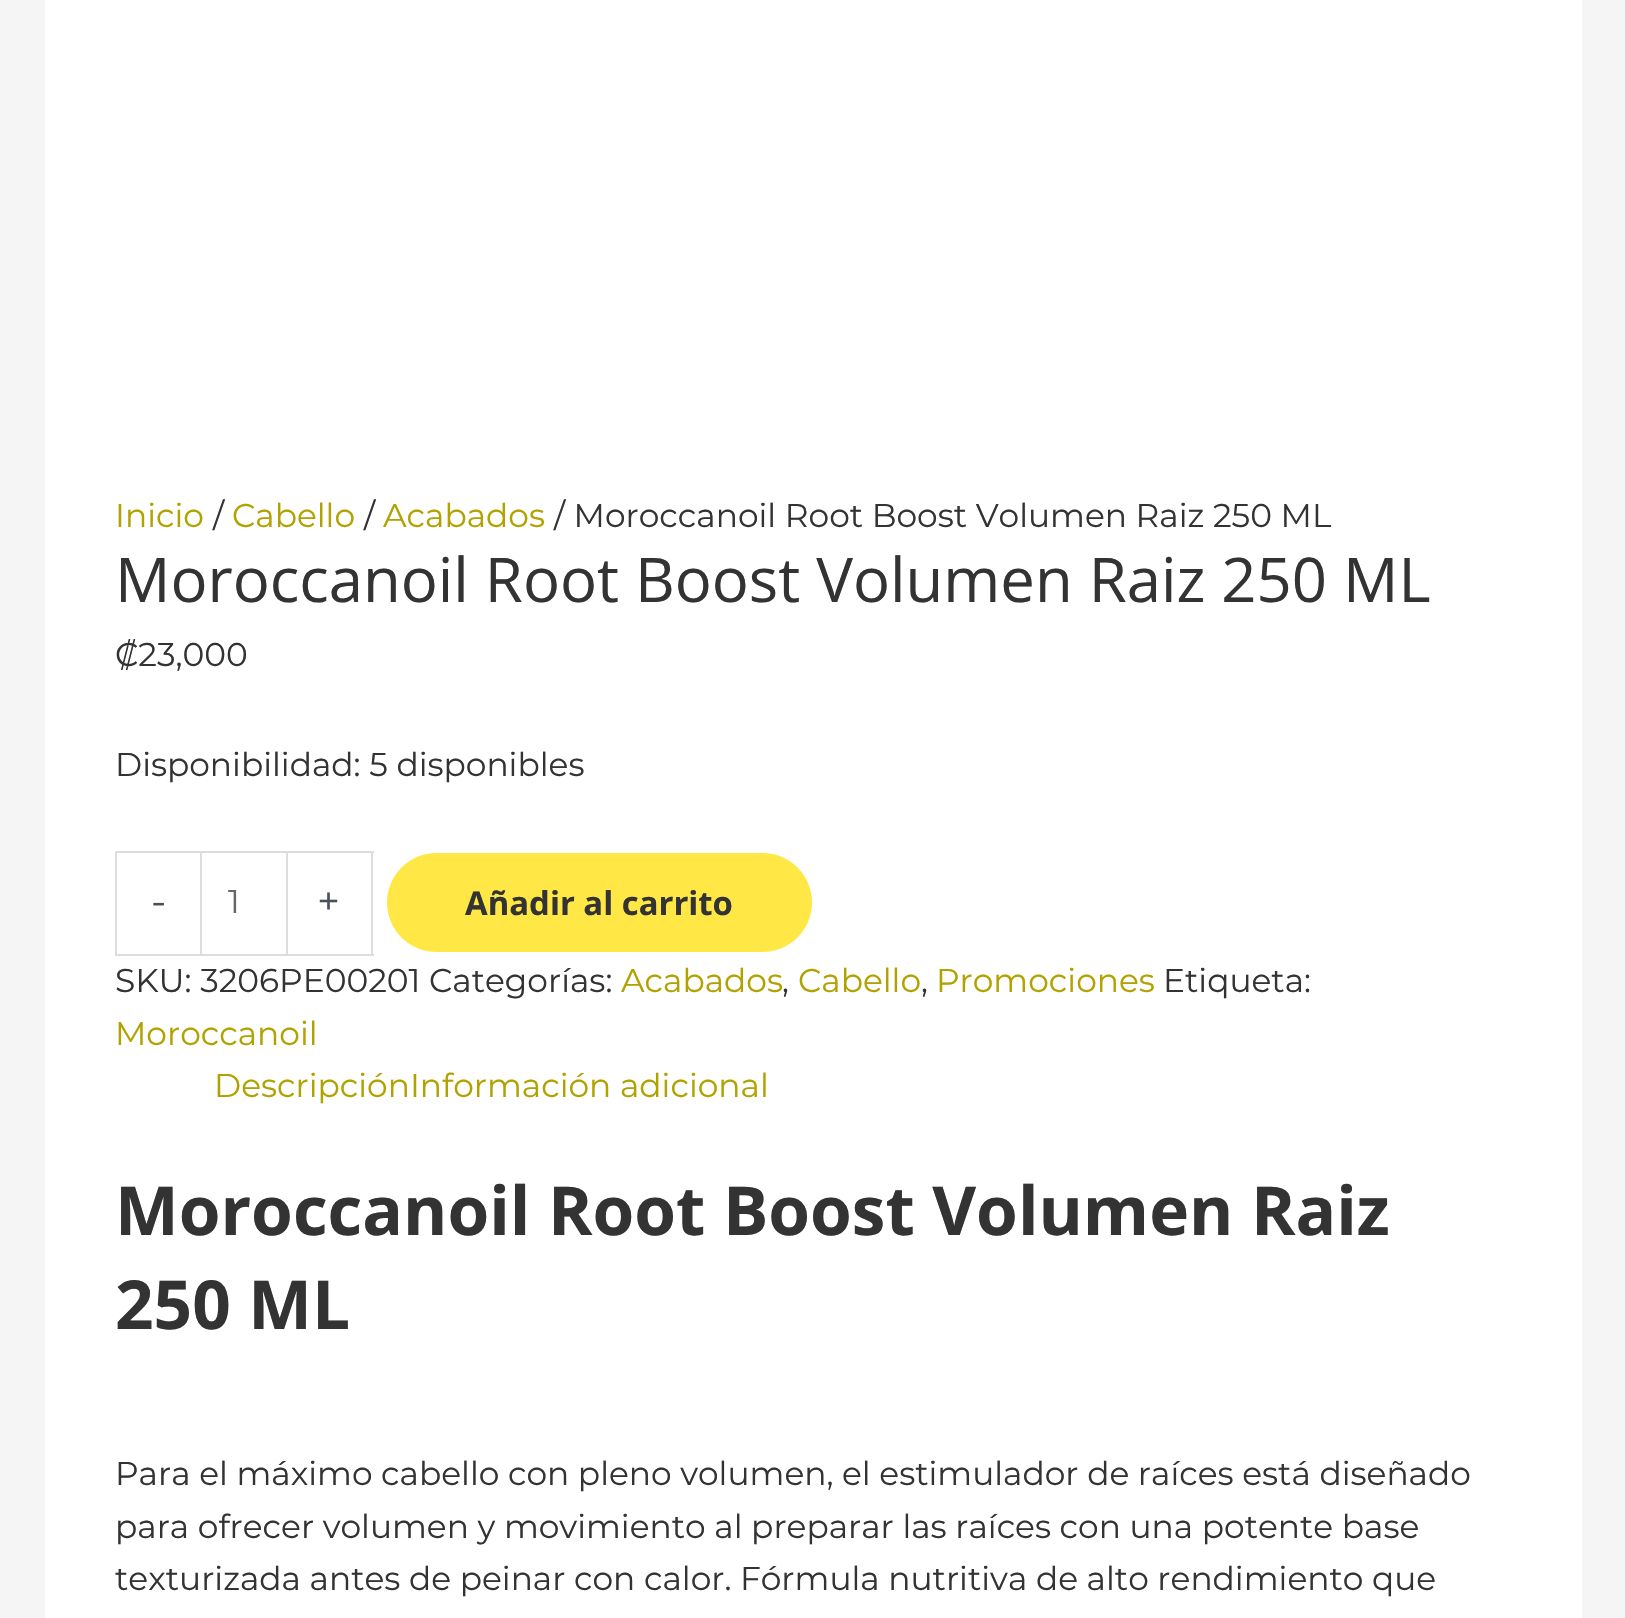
void draw(SkCanvas* canvas) {
    SkPaint paint;
    paint.setAntiAlias(true);
    canvas->clear(0xFFF5F5F5);
    paint.setColor(0xFFFFFFFF);
    canvas->drawRect(SkRect::MakeXYWH(45, 0, 1537, 1618), paint);
    SkFont font1(fontMgr->matchFamilyStyle("Montserrat", SkFontStyle::Normal()), 32.85f);
    font1.setSubpixel(true);
    paint.setColor(0xFFB1A200);
    canvas->drawString("Inicio", 115, 527, font1, paint);
    paint.setColor(0xFF333333);
    canvas->drawString("/", 213, 527, font1, paint);
    paint.setColor(0xFFB1A200);
    canvas->drawString("Cabello", 232, 527, font1, paint);
    paint.setColor(0xFF333333);
    canvas->drawString("/", 364, 527, font1, paint);
    paint.setColor(0xFFB1A200);
    canvas->drawString("Acabados", 383, 527, font1, paint);
    paint.setColor(0xFF333333);
    canvas->drawString("/ Moroccanoil Root Boost Volumen Raiz 250 ML", 554, 527, font1, paint);
    SkFont font2(fontMgr->matchFamilyStyle("Open Sans", SkFontStyle::Normal()), 61.6f);
    font2.setSubpixel(true);
    canvas->drawString("Moroccanoil Root Boost Volumen Raiz 250 ML", 115, 602, font2, paint);
    canvas->drawString("₡23,000", 115, 666, font1, paint);
    canvas->drawString("Disponibilidad: 5 disponibles", 115, 776, font1, paint);
    paint.setColor(0xFFDDDDDD);
    canvas->drawRect(SkRect::MakeXYWH(115, 851, 85, 2), paint);
    canvas->drawRect(SkRect::MakeXYWH(115, 954, 85, 2), paint);
    canvas->drawRect(SkRect::MakeXYWH(115, 851, 2, 105), paint);
    SkFont font3(fontMgr->matchFamilyStyle("Montserrat", SkFontStyle::Normal()), 40);
    font3.setSubpixel(true);
    paint.setColor(0xFF4B4F58);
    canvas->drawString("-", 151, 915, font3, paint);
    paint.setStyle(SkPaint::kStroke_Style);
    paint.setStrokeWidth(2);
    paint.setColor(0xFFDDDDDD);
    canvas->drawRect(SkRect::MakeXYWH(201, 852, 86, 103), paint);
    paint.setStyle(SkPaint::kFill_Style);
    paint.setColor(0xFF666666);
    canvas->drawString("1", 228, 913, font1, paint);
    paint.setColor(0xFFDDDDDD);
    canvas->drawRect(SkRect::MakeXYWH(288, 851, 86, 2), paint);
    canvas->drawRect(SkRect::MakeXYWH(371, 851, 2, 105), paint);
    canvas->drawRect(SkRect::MakeXYWH(288, 954, 86, 2), paint);
    paint.setColor(0xFF4B4F58);
    canvas->drawString("+", 317, 915, font3, paint);
    paint.setColor(0xFFFFE845);
    canvas->drawRoundRect(SkRect::MakeXYWH(387, 853, 425, 99), 49.5f, 49.5f, paint);
    SkFont font4(fontMgr->matchFamilyStyle("Open Sans", SkFontStyle::Bold()), 32.85f);
    font4.setSubpixel(true);
    paint.setColor(0xFF333333);
    canvas->drawString("Añadir al carrito", 465, 915, font4, paint);
    canvas->drawString("SKU: 3206PE00201 Categorías:", 115, 992, font1, paint);
    paint.setColor(0xFFB1A200);
    canvas->drawString("Acabados", 621, 992, font1, paint);
    paint.setColor(0xFF333333);
    canvas->drawString(",", 782, 992, font1, paint);
    paint.setColor(0xFFB1A200);
    canvas->drawString("Cabello", 798, 992, font1, paint);
    paint.setColor(0xFF333333);
    canvas->drawString(",", 921, 992, font1, paint);
    paint.setColor(0xFFB1A200);
    canvas->drawString("Promociones", 936, 992, font1, paint);
    paint.setColor(0xFF333333);
    canvas->drawString("Etiqueta:", 1163, 992, font1, paint);
    paint.setColor(0xFFB1A200);
    canvas->drawString("Moroccanoil", 115, 1045, font1, paint);
    canvas->drawString("DescripciónInformación adicional", 214, 1097, font1, paint);
    SkFont font5(fontMgr->matchFamilyStyle("Open Sans", SkFontStyle::Bold()), 67.5f);
    font5.setSubpixel(true);
    paint.setColor(0xFF333333);
    canvas->drawString("Moroccanoil Root Boost Volumen Raiz", 115, 1235, font5, paint);
    canvas->drawString("250 ML", 115, 1329, font5, paint);
    canvas->drawString("Para el máximo cabello con pleno volumen, el estimulador de raíces está diseñado", 115, 1485, font1, paint);
    canvas->drawString("para ofrecer volumen y movimiento al preparar las raíces con una potente base", 115, 1538, font1, paint);
    canvas->drawString("texturizada antes de peinar con calor. Fórmula nutritiva de alto rendimiento que", 115, 1590, font1, paint);
}
